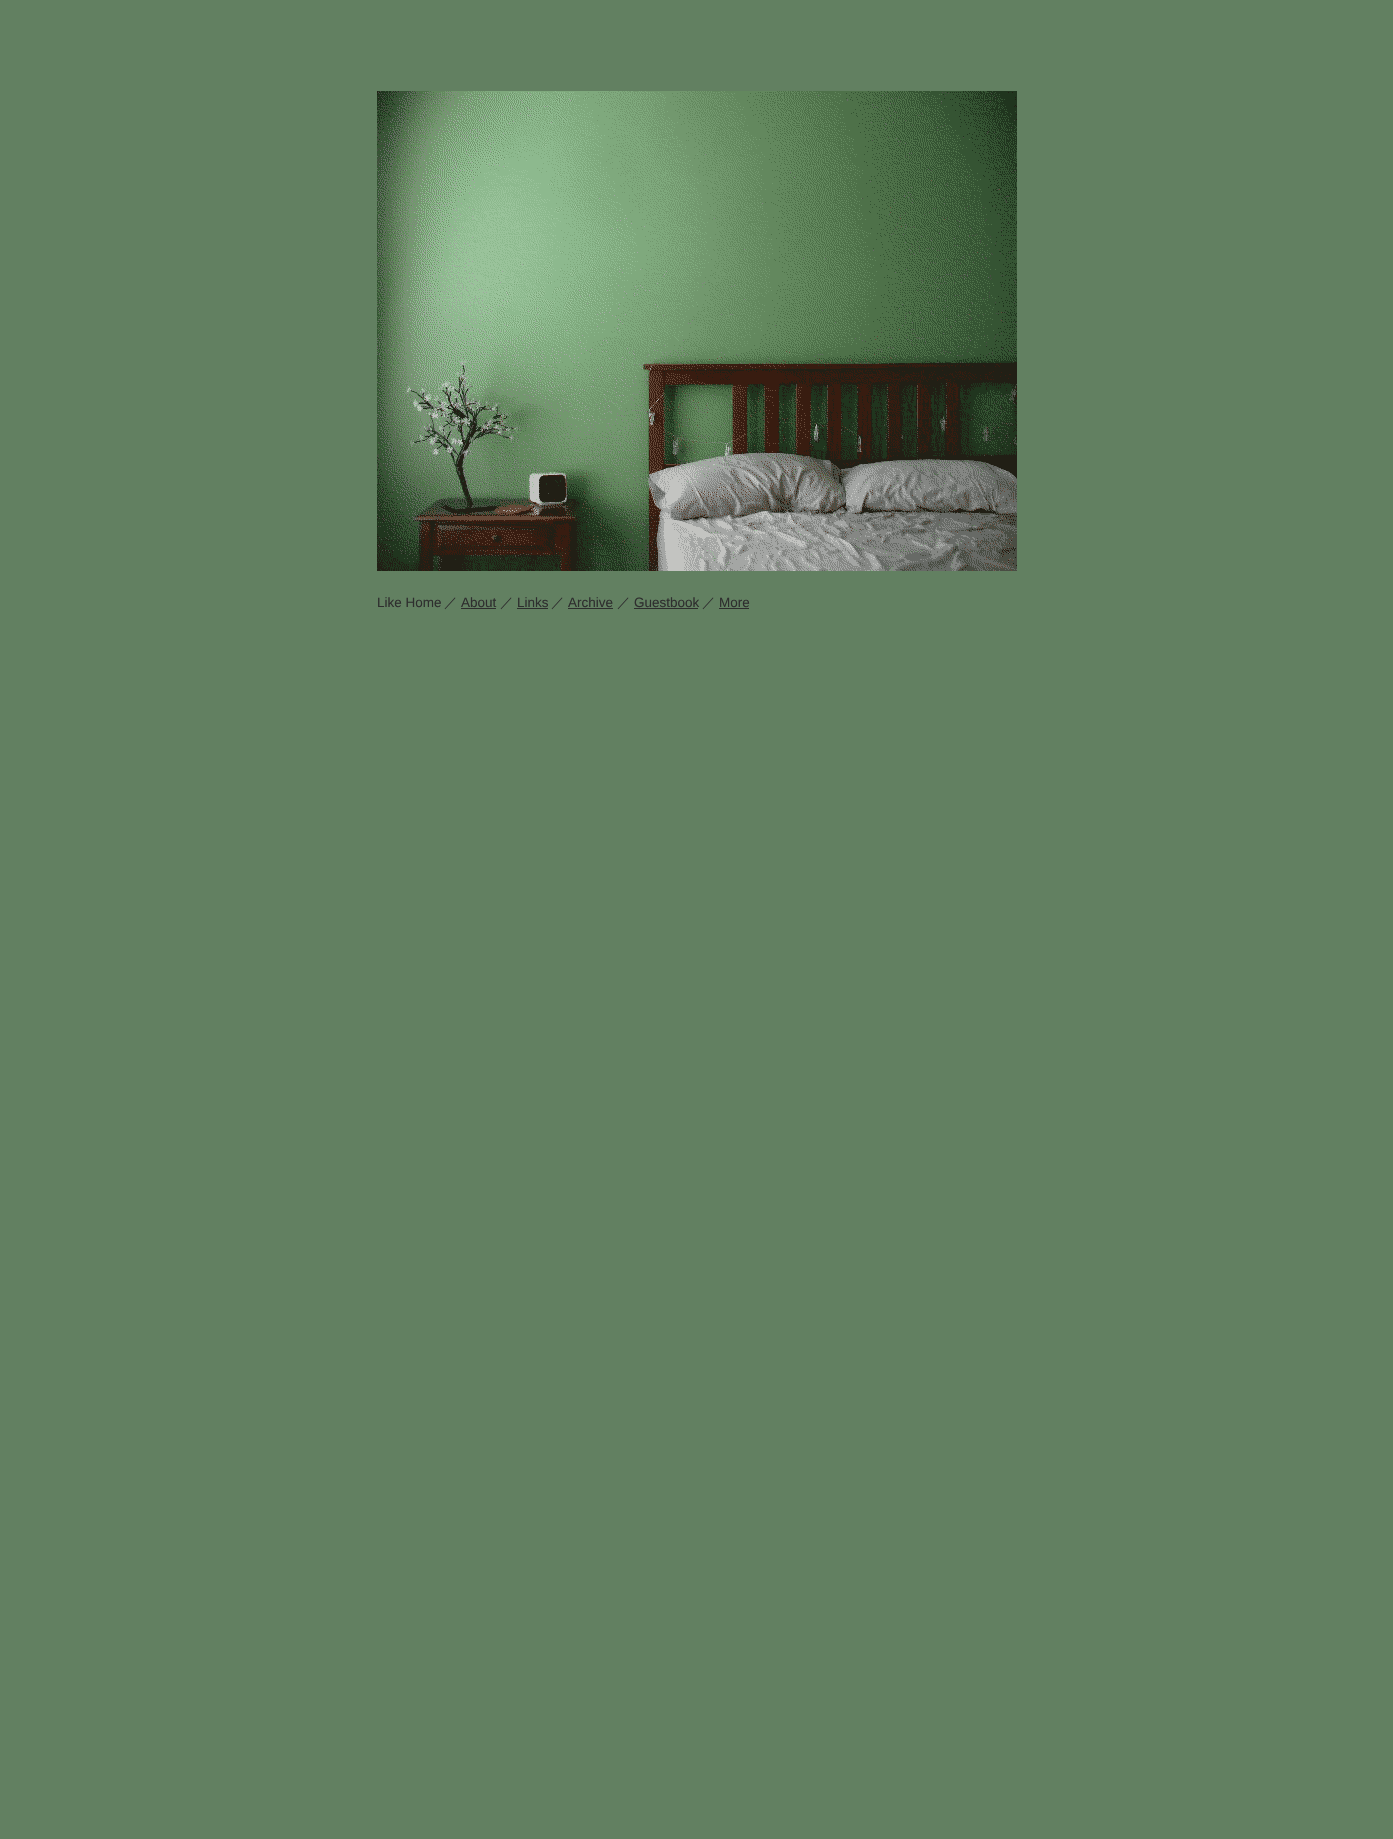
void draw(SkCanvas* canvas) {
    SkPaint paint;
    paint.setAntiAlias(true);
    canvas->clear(0xFF628061);
    canvas->drawImageRect(SkImages::DeferredFromEncodedData(SkData::MakeFromFileName("img1.png")), SkRect::MakeXYWH(377, 91, 640, 480), SkSamplingOptions());
    SkFont font1(fontMgr->matchFamilyStyle("Liberation Sans", SkFontStyle::Normal()), 13.5f);
    font1.setSubpixel(true);
    paint.setColor(0xFF2E2E2E);
    canvas->drawString("Like Home", 377, 607, font1, paint);
    SkFont font2(fontMgr->matchFamilyStyle("WenQuanYi Zen Hei", SkFontStyle(500, SkFontStyle::kNormal_Width, SkFontStyle::kUpright_Slant)), 13.5f);
    font2.setSubpixel(true);
    canvas->drawString("／", 444, 607, font2, paint);
    canvas->drawString("About", 461, 607, font1, paint);
    canvas->drawRect(SkRect::MakeXYWH(461, 608, 35, 1), paint);
    canvas->drawString("／", 500, 607, font2, paint);
    canvas->drawString("Links", 517, 607, font1, paint);
    canvas->drawRect(SkRect::MakeXYWH(517, 608, 31, 1), paint);
    canvas->drawString("／", 551, 607, font2, paint);
    canvas->drawString("Archive", 568, 607, font1, paint);
    canvas->drawRect(SkRect::MakeXYWH(568, 608, 45, 1), paint);
    canvas->drawString("／", 617, 607, font2, paint);
    canvas->drawString("Guestbook", 634, 607, font1, paint);
    canvas->drawRect(SkRect::MakeXYWH(634, 608, 64, 1), paint);
    canvas->drawString("／", 702, 607, font2, paint);
    canvas->drawString("More", 719, 607, font1, paint);
    canvas->drawRect(SkRect::MakeXYWH(719, 608, 30, 1), paint);
}
